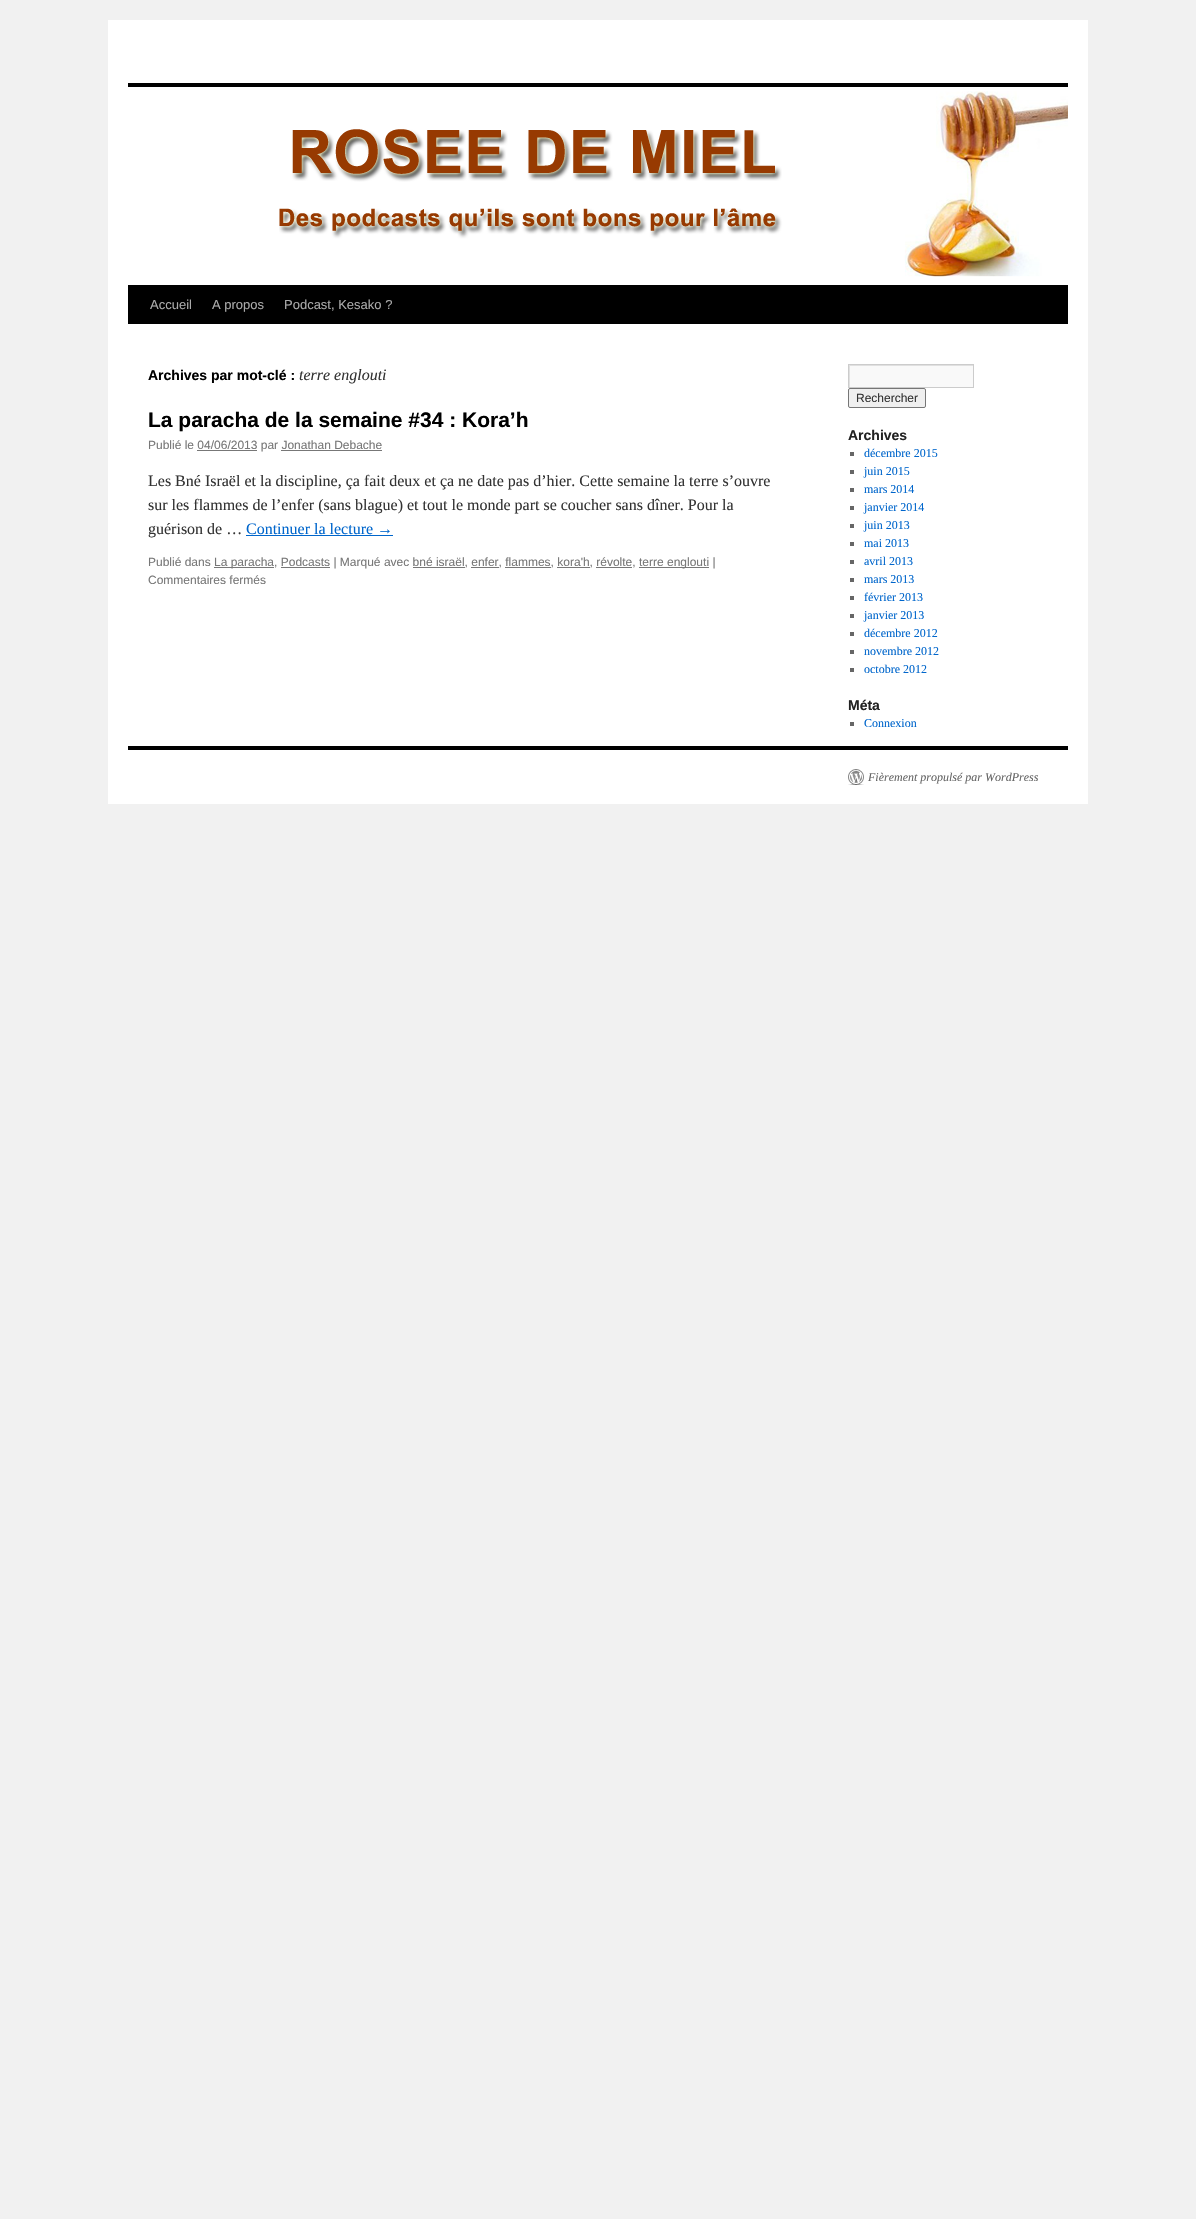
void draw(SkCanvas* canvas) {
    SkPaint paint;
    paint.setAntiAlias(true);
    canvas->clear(0xFFF1F1F1);
    paint.setColor(0xFFFFFFFF);
    canvas->drawRect(SkRect::MakeXYWH(108, 20, 980, 784), paint);
    paint.setColor(0xFF000000);
    canvas->drawRect(SkRect::MakeXYWH(128, 83, 940, 4), paint);
    canvas->drawRect(SkRect::MakeXYWH(128, 285, 940, 39), paint);
    canvas->drawImageRect(SkImages::DeferredFromEncodedData(SkData::MakeFromFileName("img1.png")), SkRect::MakeXYWH(279, 91, 789, 186), SkSamplingOptions());
    SkFont font1(fontMgr->matchFamilyStyle("Liberation Sans", SkFontStyle::Normal()), 13);
    font1.setSubpixel(true);
    paint.setColor(0xFFAAAAAA);
    canvas->drawString("Accueil", 150, 309, font1, paint);
    canvas->drawString("A propos", 212, 309, font1, paint);
    canvas->drawString("Podcast, Kesako ?", 284, 309, font1, paint);
    SkFont font2(fontMgr->matchFamilyStyle("Liberation Sans", SkFontStyle::Bold()), 14);
    font2.setSubpixel(true);
    paint.setColor(0xFF000000);
    canvas->drawString("Archives par mot-clé :", 148, 380, font2, paint);
    SkFont font3(fontMgr->matchFamilyStyle("Liberation Serif", SkFontStyle::Italic()), 16);
    font3.setSubpixel(true);
    paint.setColor(0xFF333333);
    canvas->drawString("terre englouti", 299, 380, font3, paint);
    SkFont font4(fontMgr->matchFamilyStyle("Liberation Sans", SkFontStyle::Bold()), 21);
    font4.setSubpixel(true);
    paint.setColor(0xFF000000);
    canvas->drawString("La paracha de la semaine #34 : Kora’h", 148, 427, font4, paint);
    SkFont font5(fontMgr->matchFamilyStyle("Liberation Sans", SkFontStyle::Normal()), 12);
    font5.setSubpixel(true);
    paint.setColor(0xFF777777);
    canvas->drawString("Publié le 04/06/2013 par Jonathan Debache", 148, 449, font5, paint);
    canvas->drawRect(SkRect::MakeXYWH(197, 450, 60, 1), paint);
    canvas->drawRect(SkRect::MakeXYWH(281, 450, 101, 1), paint);
    SkFont font6(fontMgr->matchFamilyStyle("Liberation Serif", SkFontStyle::Normal()), 16);
    font6.setSubpixel(true);
    paint.setColor(0xFF333333);
    canvas->drawString("Les Bné Israël et la discipline, ça fait deux et ça ne date pas d’hier. Cette semaine la terre s’ouvre", 148, 486, font6, paint);
    canvas->drawString("sur les flammes de l’enfer (sans blague) et tout le monde part se coucher sans dîner. Pour la", 148, 510, font6, paint);
    canvas->drawString("guérison de …", 148, 534, font6, paint);
    paint.setColor(0xFF0066CC);
    canvas->drawString("Continuer la lecture →", 246, 534, font6, paint);
    canvas->drawRect(SkRect::MakeXYWH(246, 535, 147, 1), paint);
    paint.setColor(0xFF777777);
    canvas->drawString("Publié dans", 148, 566, font5, paint);
    canvas->drawRect(SkRect::MakeXYWH(214, 567, 60, 1), paint);
    canvas->drawString("La paracha, Podcasts | Marqué avec bné israël, enfer, flammes, kora'h, révolte,", 214, 566, font5, paint);
    canvas->drawRect(SkRect::MakeXYWH(281, 567, 49, 1), paint);
    canvas->drawRect(SkRect::MakeXYWH(639, 567, 70, 1), paint);
    canvas->drawString("terre englouti |", 639, 566, font5, paint);
    canvas->drawRect(SkRect::MakeXYWH(413, 567, 52, 1), paint);
    canvas->drawRect(SkRect::MakeXYWH(471, 567, 28, 1), paint);
    canvas->drawRect(SkRect::MakeXYWH(505, 567, 46, 1), paint);
    canvas->drawRect(SkRect::MakeXYWH(557, 567, 33, 1), paint);
    canvas->drawRect(SkRect::MakeXYWH(596, 567, 36, 1), paint);
    canvas->drawString("Commentaires fermés", 148, 584, font5, paint);
    paint.setColor(0xFFF9F9F9);
    canvas->drawRect(SkRect::MakeXYWH(850, 366, 123, 21), paint);
    canvas->save();
    canvas->clipRect(SkRect::MakeXYWH(849, 365, 124, 22));
    paint.setColor(0xFFE0E0E0);
    canvas->drawPath(SkPathBuilder(SkPathFillType::kEvenOdd).moveTo(750, 266).lineTo(1072, 266).lineTo(1072, 486).lineTo(750, 486).close().moveTo(850, 366).lineTo(974, 366).lineTo(974, 388).lineTo(850, 388).close().detach(), paint);
    canvas->restore();
    paint.setStyle(SkPaint::kStroke_Style);
    paint.setStrokeWidth(1);
    paint.setColor(0xFFCCCCCC);
    canvas->drawRect(SkRect::MakeXYWH(848.5f, 364.5f, 125, 23), paint);
    paint.setStyle(SkPaint::kFill_Style);
    paint.setColor(0xFFEFEFEF);
    canvas->drawRoundRect(SkRect::MakeXYWH(848.5f, 388.5f, 77, 19), 1.5f, 1.5f, paint);
    paint.setStyle(SkPaint::kStroke_Style);
    paint.setColor(0xFF767676);
    canvas->drawRoundRect(SkRect::MakeXYWH(848.5f, 388.5f, 77, 19), 1.5f, 1.5f, paint);
    paint.setStyle(SkPaint::kFill_Style);
    paint.setColor(0xFF333333);
    canvas->drawString("Rechercher", 856, 402, font5, paint);
    paint.setColor(0xFF222222);
    canvas->drawString("Archives", 848, 440, font2, paint);
    paint.setColor(0xFF666666);
    canvas->drawRect(SkRect::MakeXYWH(850, 452, 4, 4), paint);
    SkFont font7(fontMgr->matchFamilyStyle("Liberation Serif", SkFontStyle::Normal()), 12);
    font7.setSubpixel(true);
    paint.setColor(0xFF0066CC);
    canvas->drawString("décembre 2015", 864, 457, font7, paint);
    paint.setColor(0xFF666666);
    canvas->drawRect(SkRect::MakeXYWH(850, 470, 4, 4), paint);
    paint.setColor(0xFF0066CC);
    canvas->drawString("juin 2015", 864, 475, font7, paint);
    paint.setColor(0xFF666666);
    canvas->drawRect(SkRect::MakeXYWH(850, 488, 4, 4), paint);
    paint.setColor(0xFF0066CC);
    canvas->drawString("mars 2014", 864, 493, font7, paint);
    paint.setColor(0xFF666666);
    canvas->drawRect(SkRect::MakeXYWH(850, 506, 4, 4), paint);
    paint.setColor(0xFF0066CC);
    canvas->drawString("janvier 2014", 864, 511, font7, paint);
    paint.setColor(0xFF666666);
    canvas->drawRect(SkRect::MakeXYWH(850, 524, 4, 4), paint);
    paint.setColor(0xFF0066CC);
    canvas->drawString("juin 2013", 864, 529, font7, paint);
    paint.setColor(0xFF666666);
    canvas->drawRect(SkRect::MakeXYWH(850, 542, 4, 4), paint);
    paint.setColor(0xFF0066CC);
    canvas->drawString("mai 2013", 864, 547, font7, paint);
    paint.setColor(0xFF666666);
    canvas->drawRect(SkRect::MakeXYWH(850, 560, 4, 4), paint);
    paint.setColor(0xFF0066CC);
    canvas->drawString("avril 2013", 864, 565, font7, paint);
    paint.setColor(0xFF666666);
    canvas->drawRect(SkRect::MakeXYWH(850, 578, 4, 4), paint);
    paint.setColor(0xFF0066CC);
    canvas->drawString("mars 2013", 864, 583, font7, paint);
    paint.setColor(0xFF666666);
    canvas->drawRect(SkRect::MakeXYWH(850, 596, 4, 4), paint);
    paint.setColor(0xFF0066CC);
    canvas->drawString("février 2013", 864, 601, font7, paint);
    paint.setColor(0xFF666666);
    canvas->drawRect(SkRect::MakeXYWH(850, 614, 4, 4), paint);
    paint.setColor(0xFF0066CC);
    canvas->drawString("janvier 2013", 864, 619, font7, paint);
    paint.setColor(0xFF666666);
    canvas->drawRect(SkRect::MakeXYWH(850, 632, 4, 4), paint);
    paint.setColor(0xFF0066CC);
    canvas->drawString("décembre 2012", 864, 637, font7, paint);
    paint.setColor(0xFF666666);
    canvas->drawRect(SkRect::MakeXYWH(850, 650, 4, 4), paint);
    paint.setColor(0xFF0066CC);
    canvas->drawString("novembre 2012", 864, 655, font7, paint);
    paint.setColor(0xFF666666);
    canvas->drawRect(SkRect::MakeXYWH(850, 668, 4, 4), paint);
    paint.setColor(0xFF0066CC);
    canvas->drawString("octobre 2012", 864, 673, font7, paint);
    paint.setColor(0xFF222222);
    canvas->drawString("Méta", 848, 710, font2, paint);
    paint.setColor(0xFF666666);
    canvas->drawRect(SkRect::MakeXYWH(850, 722, 4, 4), paint);
    paint.setColor(0xFF0066CC);
    canvas->drawString("Connexion", 864, 727, font7, paint);
    paint.setColor(0xFF000000);
    canvas->drawRect(SkRect::MakeXYWH(128, 746, 940, 4), paint);
    canvas->drawImageRect(SkImages::DeferredFromEncodedData(SkData::MakeFromFileName("img2.png")), SkRect::MakeXYWH(848, 769, 16, 16), SkSamplingOptions());
    SkFont font8(fontMgr->matchFamilyStyle("Liberation Serif", SkFontStyle::Italic()), 12);
    font8.setSubpixel(true);
    paint.setColor(0xFF666666);
    canvas->drawString("Fièrement propulsé par WordPress", 868, 781, font8, paint);
}
